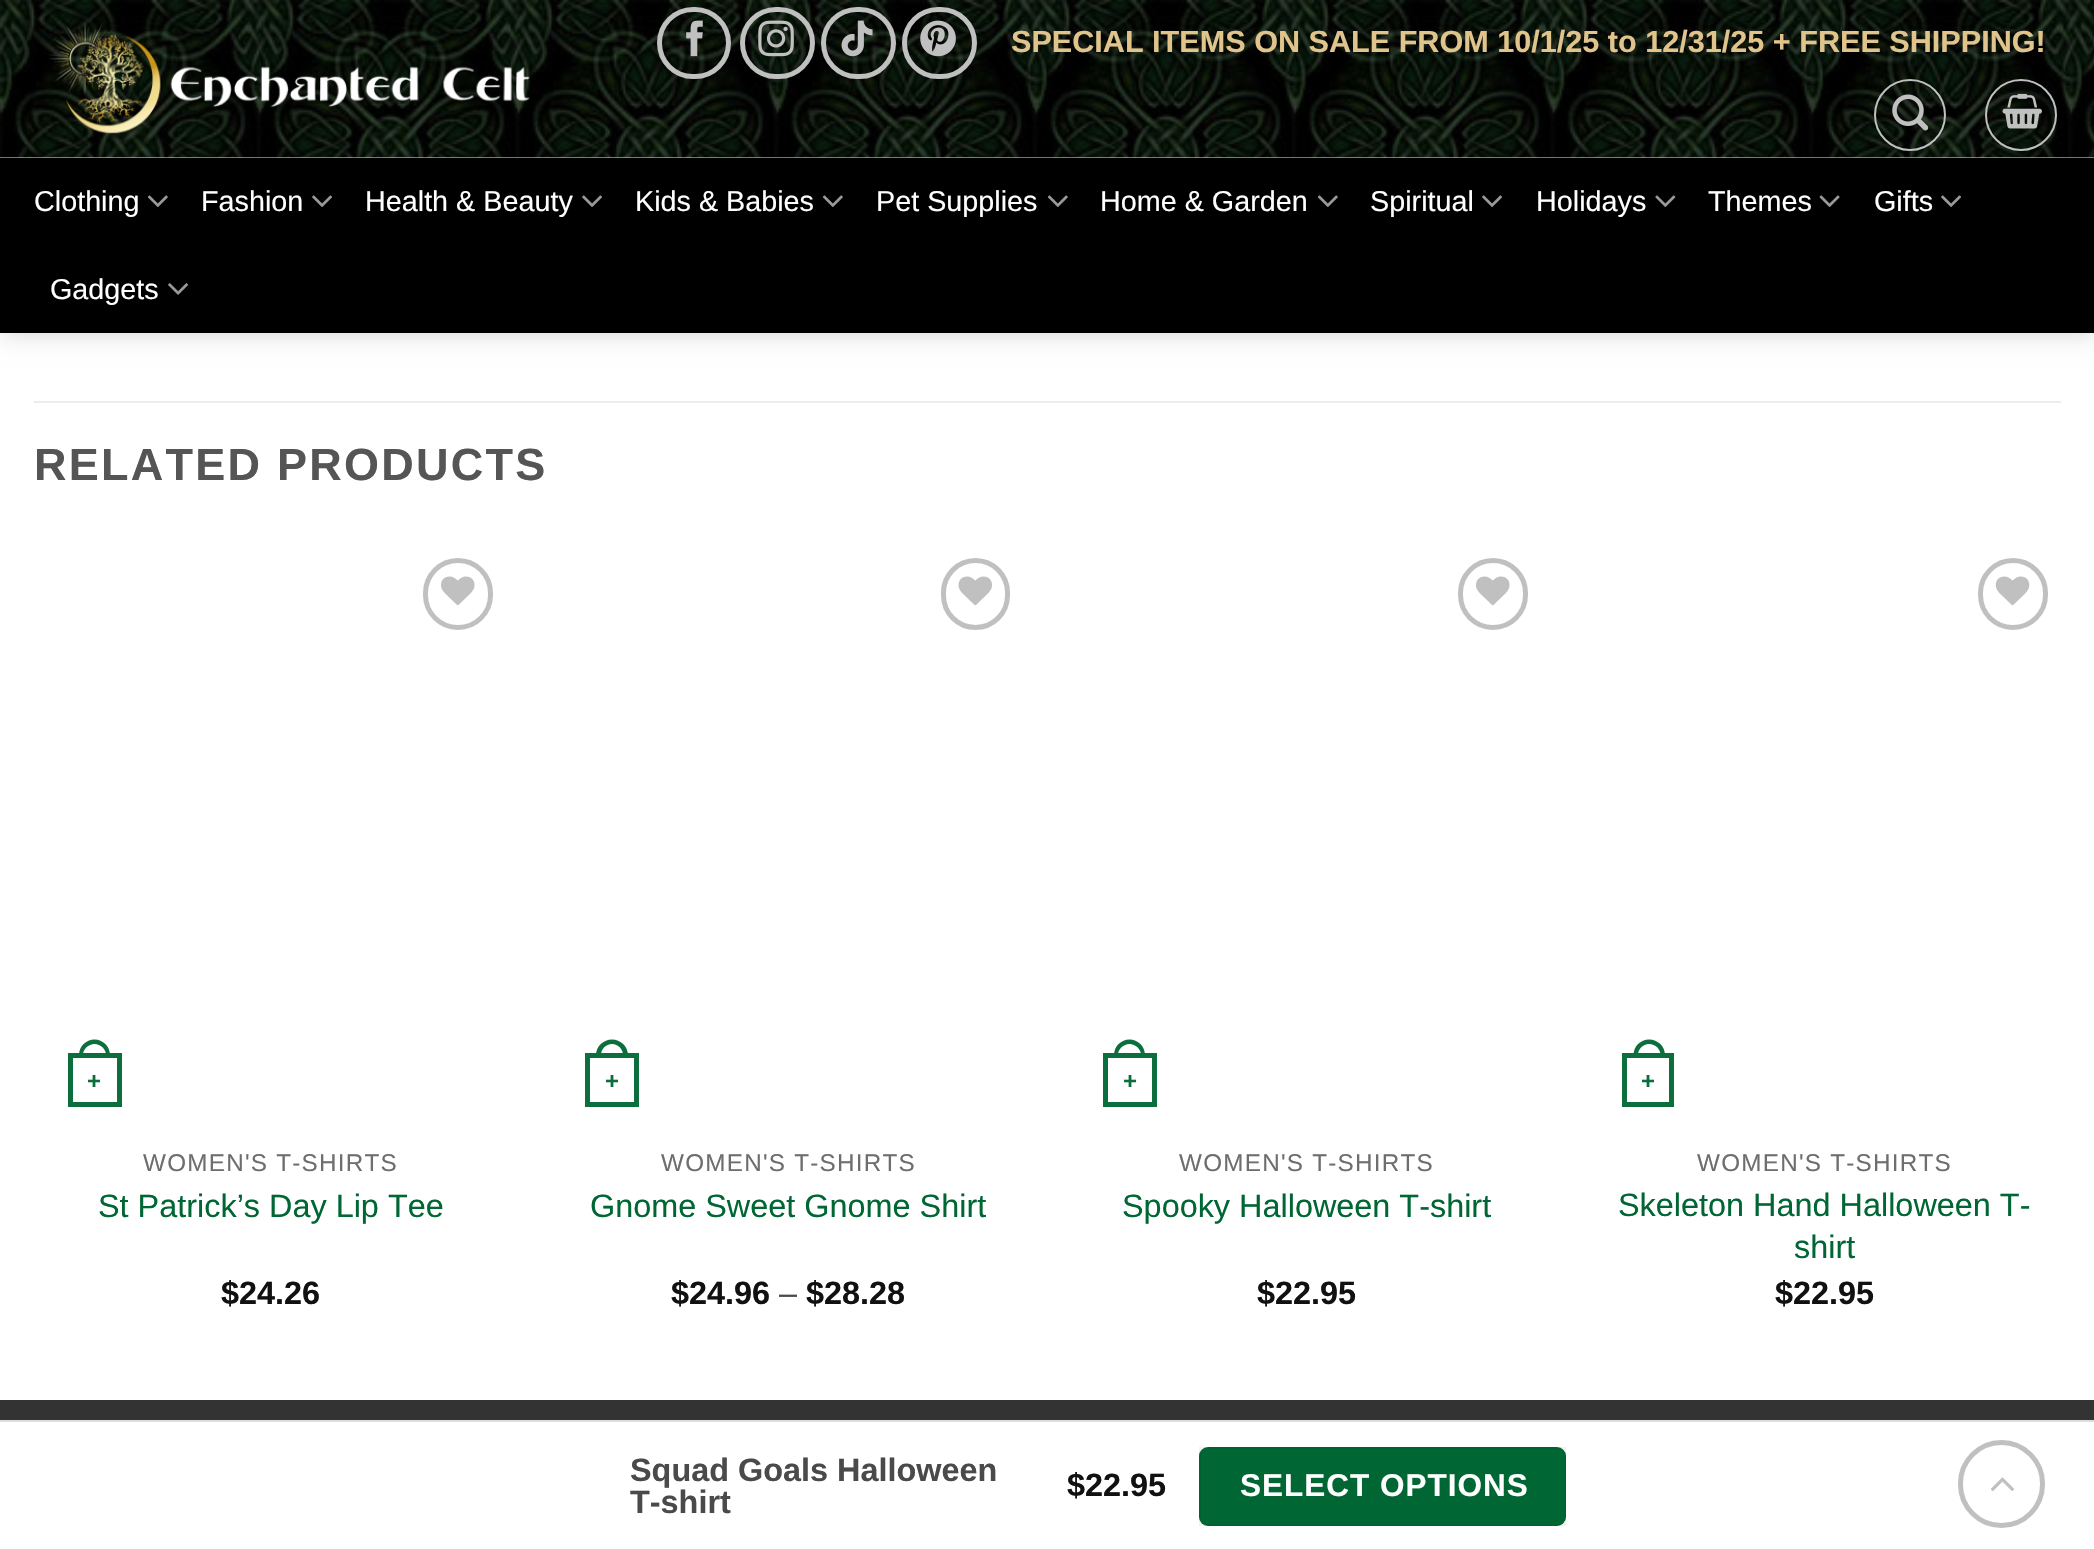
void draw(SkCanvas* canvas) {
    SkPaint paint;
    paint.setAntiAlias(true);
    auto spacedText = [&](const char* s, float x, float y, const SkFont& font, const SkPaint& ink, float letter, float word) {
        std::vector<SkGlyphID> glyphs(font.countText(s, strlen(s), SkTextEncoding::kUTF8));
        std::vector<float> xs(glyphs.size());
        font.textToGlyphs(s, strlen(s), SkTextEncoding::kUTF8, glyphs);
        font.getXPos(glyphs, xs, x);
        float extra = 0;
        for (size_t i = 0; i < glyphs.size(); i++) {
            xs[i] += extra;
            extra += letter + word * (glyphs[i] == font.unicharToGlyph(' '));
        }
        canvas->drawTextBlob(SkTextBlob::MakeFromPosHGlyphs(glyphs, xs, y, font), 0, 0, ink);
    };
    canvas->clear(0xFFFFFFFF);
    paint.setColor(0x26000000);
    paint.setMaskFilter(SkMaskFilter::MakeBlur(kNormal_SkBlurStyle, 11));
    canvas->drawRect(SkRect::MakeXYWH(2, 2, 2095, 333), paint);
    paint.setMaskFilter(nullptr);
    canvas->drawImageRect(SkImages::DeferredFromEncodedData(SkData::MakeFromFileName("img9.png")), SkRect::MakeXYWH(0, 157, 2094, 1), SkSamplingOptions());
    paint.setColor(0xE6FFFFFF);
    canvas->drawRect(SkRect::MakeXYWH(0, 157, 2094, 1), paint);
    canvas->drawImageRect(SkImages::DeferredFromEncodedData(SkData::MakeFromFileName("img1.png")), SkRect::MakeXYWH(0, 0, 2094, 158), SkSamplingOptions());
    canvas->drawImageRect(SkImages::DeferredFromEncodedData(SkData::MakeFromFileName("img2.png")), SkRect::MakeXYWH(48, 22, 482, 112), SkSamplingOptions());
    paint.setStyle(SkPaint::kStroke_Style);
    paint.setStrokeWidth(5);
    paint.setColor(0xFFC0C0C0);
    canvas->drawRoundRect(SkRect::MakeXYWH(659.5f, 9.5f, 69, 67), 33.5f, 33.5f, paint);
    canvas->drawImageRect(SkImages::DeferredFromEncodedData(SkData::MakeFromFileName("img3.png")), SkRect::MakeXYWH(686, 20, 17, 37), SkSamplingOptions());
    canvas->drawRoundRect(SkRect::MakeXYWH(742.5f, 9.5f, 70, 67), 33.5f, 33.5f, paint);
    canvas->drawImageRect(SkImages::DeferredFromEncodedData(SkData::MakeFromFileName("img4.png")), SkRect::MakeXYWH(758, 20, 36, 37), SkSamplingOptions());
    canvas->drawRoundRect(SkRect::MakeXYWH(823.5f, 9.5f, 70, 67), 33.5f, 33.5f, paint);
    canvas->drawImageRect(SkImages::DeferredFromEncodedData(SkData::MakeFromFileName("img5.png")), SkRect::MakeXYWH(841, 20, 32, 37), SkSamplingOptions());
    canvas->drawRoundRect(SkRect::MakeXYWH(904.5f, 9.5f, 70, 67), 33.5f, 33.5f, paint);
    canvas->drawImageRect(SkImages::DeferredFromEncodedData(SkData::MakeFromFileName("img6.png")), SkRect::MakeXYWH(920, 20, 36, 37), SkSamplingOptions());
    SkFont font1(fontMgr->matchFamilyStyle("Liberation Sans", SkFontStyle::Bold()), 30.6f);
    font1.setSubpixel(true);
    paint.setStyle(SkPaint::kFill_Style);
    paint.setColor(0xFFE0C48B);
    canvas->drawString("SPECIAL ITEMS ON SALE FROM 10/1/25 to 12/31/25 + FREE SHIPPING!", 1011, 52, font1, paint);
    paint.setStyle(SkPaint::kStroke_Style);
    paint.setStrokeWidth(2);
    paint.setColor(0xFFC0C0C0);
    canvas->drawCircle(1910, 115, 35, paint);
    canvas->drawImageRect(SkImages::DeferredFromEncodedData(SkData::MakeFromFileName("img7.png")), SkRect::MakeXYWH(1892, 94, 37, 37), SkSamplingOptions());
    canvas->drawCircle(2021, 115, 35, paint);
    canvas->drawImageRect(SkImages::DeferredFromEncodedData(SkData::MakeFromFileName("img8.png")), SkRect::MakeXYWH(2002, 93, 40, 36), SkSamplingOptions());
    paint.setStyle(SkPaint::kFill_Style);
    paint.setColor(0xFF000000);
    canvas->drawRect(SkRect::MakeXYWH(0, 158, 2094, 175), paint);
    SkFont font2(fontMgr->matchFamilyStyle("Liberation Sans", SkFontStyle::Normal()), 28.75f);
    font2.setSubpixel(true);
    paint.setColor(0xFFFFFFFF);
    canvas->drawString("Clothing", 34, 211, font2, paint);
    canvas->drawImageRect(SkImages::DeferredFromEncodedData(SkData::MakeFromFileName("img10.png")), SkRect::MakeXYWH(147, 195, 21, 12), SkSamplingOptions());
    canvas->drawString("Fashion", 201, 211, font2, paint);
    canvas->drawImageRect(SkImages::DeferredFromEncodedData(SkData::MakeFromFileName("img11.png")), SkRect::MakeXYWH(312, 195, 20, 12), SkSamplingOptions());
    canvas->drawString("Health & Beauty", 365, 211, font2, paint);
    canvas->drawImageRect(SkImages::DeferredFromEncodedData(SkData::MakeFromFileName("img11.png")), SkRect::MakeXYWH(582, 195, 20, 12), SkSamplingOptions());
    canvas->drawString("Kids & Babies", 635, 211, font2, paint);
    canvas->drawImageRect(SkImages::DeferredFromEncodedData(SkData::MakeFromFileName("img10.png")), SkRect::MakeXYWH(822, 195, 21, 12), SkSamplingOptions());
    canvas->drawString("Pet Supplies", 876, 211, font2, paint);
    canvas->drawImageRect(SkImages::DeferredFromEncodedData(SkData::MakeFromFileName("img10.png")), SkRect::MakeXYWH(1047, 195, 21, 12), SkSamplingOptions());
    canvas->drawString("Home & Garden", 1100, 211, font2, paint);
    canvas->drawImageRect(SkImages::DeferredFromEncodedData(SkData::MakeFromFileName("img10.png")), SkRect::MakeXYWH(1317, 195, 21, 12), SkSamplingOptions());
    canvas->drawString("Spiritual", 1370, 211, font2, paint);
    canvas->drawImageRect(SkImages::DeferredFromEncodedData(SkData::MakeFromFileName("img11.png")), SkRect::MakeXYWH(1482, 195, 20, 12), SkSamplingOptions());
    canvas->drawString("Holidays", 1536, 211, font2, paint);
    canvas->drawImageRect(SkImages::DeferredFromEncodedData(SkData::MakeFromFileName("img12.png")), SkRect::MakeXYWH(1655, 195, 21, 12), SkSamplingOptions());
    canvas->drawString("Themes", 1708, 211, font2, paint);
    canvas->drawImageRect(SkImages::DeferredFromEncodedData(SkData::MakeFromFileName("img13.png")), SkRect::MakeXYWH(1819, 195, 21, 12), SkSamplingOptions());
    canvas->drawString("Gifts", 1874, 211, font2, paint);
    canvas->drawImageRect(SkImages::DeferredFromEncodedData(SkData::MakeFromFileName("img11.png")), SkRect::MakeXYWH(1941, 195, 20, 12), SkSamplingOptions());
    canvas->drawString("Gadgets", 50, 299, font2, paint);
    canvas->drawImageRect(SkImages::DeferredFromEncodedData(SkData::MakeFromFileName("img14.png")), SkRect::MakeXYWH(168, 283, 20, 12), SkSamplingOptions());
    paint.setColor(0xFFECECEC);
    canvas->drawRect(SkRect::MakeXYWH(34, 401, 2027, 2), paint);
    SkFont font3(fontMgr->matchFamilyStyle("Liberation Sans", SkFontStyle::Bold()), 45);
    font3.setSubpixel(true);
    paint.setColor(0xFF555555);
    spacedText("RELATED PRODUCTS", 34, 480, font3, paint, 2.25f, 0);
    paint.setStyle(SkPaint::kStroke_Style);
    paint.setStrokeWidth(5);
    paint.setColor(0xFFC0C0C0);
    canvas->drawRoundRect(SkRect::MakeXYWH(425.5f, 560.5f, 65, 67), 32.5f, 32.5f, paint);
    canvas->drawImageRect(SkImages::DeferredFromEncodedData(SkData::MakeFromFileName("img15.png")), SkRect::MakeXYWH(441, 576, 34, 30), SkSamplingOptions());
    paint.setColor(0xFF0D6E3D);
    canvas->drawRect(SkRect::MakeXYWH(70.5f, 1055.5f, 49, 49), paint);
    paint.setStyle(SkPaint::kFill_Style);
    canvas->drawPath(SkPathBuilder(SkPathFillType::kEvenOdd).moveTo(94.5f, 1039.5f).cubicTo(103, 1039.5f, 110, 1046.5f, 110, 1055).lineTo(110, 1057.5f).lineTo(79, 1057.5f).lineTo(79, 1055).cubicTo(79, 1046.5f, 86, 1039.5f, 94.5f, 1039.5f).close().moveTo(94.5f, 1044).cubicTo(100.5f, 1044, 106, 1049, 106, 1055).lineTo(106, 1057.5f).lineTo(83, 1057.5f).lineTo(83, 1055).cubicTo(83, 1049, 88.5f, 1044, 94.5f, 1044).close().detach(), paint);
    SkFont font4(fontMgr->matchFamilyStyle("Liberation Sans", SkFontStyle::Bold()), 24);
    font4.setSubpixel(true);
    canvas->drawString("+", 87, 1089, font4, paint);
    SkFont font5(fontMgr->matchFamilyStyle("Liberation Sans", SkFontStyle::Normal()), 24.25f);
    font5.setSubpixel(true);
    paint.setColor(0xFF6E6E6E);
    spacedText("WOMEN'S T-SHIRTS", 143, 1171, font5, paint, 1.25f, 0);
    SkFont font6(fontMgr->matchFamilyStyle("Liberation Sans", SkFontStyle::Normal()), 32.4f);
    font6.setSubpixel(true);
    paint.setColor(0xFF006633);
    canvas->drawString("St Patrick’s Day Lip Tee", 98, 1217, font6, paint);
    SkFont font7(fontMgr->matchFamilyStyle("Liberation Sans", SkFontStyle::Bold()), 32.4f);
    font7.setSubpixel(true);
    paint.setColor(0xFF111111);
    canvas->drawString("$24.26", 221, 1304, font7, paint);
    paint.setStyle(SkPaint::kStroke_Style);
    paint.setColor(0xFFC0C0C0);
    canvas->drawRoundRect(SkRect::MakeXYWH(943.5f, 560.5f, 64, 67), 32, 32, paint);
    canvas->drawImageRect(SkImages::DeferredFromEncodedData(SkData::MakeFromFileName("img16.png")), SkRect::MakeXYWH(958, 576, 34, 30), SkSamplingOptions());
    paint.setColor(0xFF0D6E3D);
    canvas->drawRect(SkRect::MakeXYWH(587.5f, 1055.5f, 49, 49), paint);
    paint.setStyle(SkPaint::kFill_Style);
    canvas->drawPath(SkPathBuilder(SkPathFillType::kEvenOdd).moveTo(612, 1039.5f).cubicTo(620.5f, 1039.5f, 628, 1046.5f, 628, 1055).lineTo(628, 1057.5f).lineTo(596, 1057.5f).lineTo(596, 1055).cubicTo(596, 1046.5f, 603.5f, 1039.5f, 612, 1039.5f).close().moveTo(612, 1044).cubicTo(618, 1044, 623, 1049, 623, 1055).lineTo(623, 1057.5f).lineTo(601, 1057.5f).lineTo(601, 1055).cubicTo(601, 1049, 606, 1044, 612, 1044).close().detach(), paint);
    canvas->drawString("+", 605, 1089, font4, paint);
    paint.setColor(0xFF6E6E6E);
    spacedText("WOMEN'S T-SHIRTS", 661, 1171, font5, paint, 1.25f, 0);
    paint.setColor(0xFF006633);
    canvas->drawString("Gnome Sweet Gnome Shirt", 590, 1217, font6, paint);
    paint.setColor(0xFF111111);
    canvas->drawString("$24.96", 671, 1304, font7, paint);
    paint.setColor(0xFF4A4A4A);
    canvas->drawString("–", 779, 1304, font6, paint);
    paint.setColor(0xFF111111);
    canvas->drawString("$28.28", 806, 1304, font7, paint);
    paint.setStyle(SkPaint::kStroke_Style);
    paint.setColor(0xFFC0C0C0);
    canvas->drawRoundRect(SkRect::MakeXYWH(1460.5f, 560.5f, 65, 67), 32.5f, 32.5f, paint);
    canvas->drawImageRect(SkImages::DeferredFromEncodedData(SkData::MakeFromFileName("img15.png")), SkRect::MakeXYWH(1476, 576, 34, 30), SkSamplingOptions());
    paint.setColor(0xFF0D6E3D);
    canvas->drawRect(SkRect::MakeXYWH(1105.5f, 1055.5f, 49, 49), paint);
    paint.setStyle(SkPaint::kFill_Style);
    canvas->drawPath(SkPathBuilder(SkPathFillType::kEvenOdd).moveTo(1129.5f, 1039.5f).cubicTo(1138, 1039.5f, 1145, 1046.5f, 1145, 1055).lineTo(1145, 1057.5f).lineTo(1114, 1057.5f).lineTo(1114, 1055).cubicTo(1114, 1046.5f, 1121, 1039.5f, 1129.5f, 1039.5f).close().moveTo(1129.5f, 1044).cubicTo(1135.5f, 1044, 1141, 1049, 1141, 1055).lineTo(1141, 1057.5f).lineTo(1118, 1057.5f).lineTo(1118, 1055).cubicTo(1118, 1049, 1123.5f, 1044, 1129.5f, 1044).close().detach(), paint);
    canvas->drawString("+", 1123, 1089, font4, paint);
    paint.setColor(0xFF6E6E6E);
    spacedText("WOMEN'S T-SHIRTS", 1179, 1171, font5, paint, 1.25f, 0);
    paint.setColor(0xFF006633);
    canvas->drawString("Spooky Halloween T-shirt", 1122, 1217, font6, paint);
    paint.setColor(0xFF111111);
    canvas->drawString("$22.95", 1257, 1304, font7, paint);
    paint.setStyle(SkPaint::kStroke_Style);
    paint.setColor(0xFFC0C0C0);
    canvas->drawRoundRect(SkRect::MakeXYWH(1980.5f, 560.5f, 65, 67), 32.5f, 32.5f, paint);
    canvas->drawImageRect(SkImages::DeferredFromEncodedData(SkData::MakeFromFileName("img17.png")), SkRect::MakeXYWH(1995, 576, 35, 30), SkSamplingOptions());
    paint.setColor(0xFF0D6E3D);
    canvas->drawRect(SkRect::MakeXYWH(1624.5f, 1055.5f, 47, 49), paint);
    paint.setStyle(SkPaint::kFill_Style);
    canvas->drawPath(SkPathBuilder(SkPathFillType::kEvenOdd).moveTo(1649, 1039.5f).cubicTo(1658, 1039.5f, 1665, 1046.5f, 1665, 1055).lineTo(1665, 1057.5f).lineTo(1633.5f, 1057.5f).lineTo(1633.5f, 1055).cubicTo(1633.5f, 1046.5f, 1640.5f, 1039.5f, 1649, 1039.5f).close().moveTo(1649, 1044).cubicTo(1655.5f, 1044, 1660.5f, 1049, 1660.5f, 1055).lineTo(1660.5f, 1057.5f).lineTo(1638, 1057.5f).lineTo(1638, 1055).cubicTo(1638, 1049, 1643, 1044, 1649, 1044).close().detach(), paint);
    canvas->drawString("+", 1641, 1089, font4, paint);
    paint.setColor(0xFF6E6E6E);
    spacedText("WOMEN'S T-SHIRTS", 1697, 1171, font5, paint, 1.25f, 0);
    paint.setColor(0xFF006633);
    canvas->drawString("Skeleton Hand Halloween T-", 1618, 1216, font6, paint);
    canvas->drawString("shirt", 1794, 1258, font6, paint);
    paint.setColor(0xFF111111);
    canvas->drawString("$22.95", 1775, 1304, font7, paint);
    paint.setColor(0xFF333333);
    canvas->drawRect(SkRect::MakeXYWH(0, 1400, 2094, 20), paint);
    paint.setStyle(SkPaint::kStroke_Style);
    paint.setColor(0xFFC0C0C0);
    canvas->drawRoundRect(SkRect::MakeXYWH(1960.5f, 1442.5f, 82, 83), 41, 41, paint);
    canvas->drawImageRect(SkImages::DeferredFromEncodedData(SkData::MakeFromFileName("img18.png")), SkRect::MakeXYWH(1990, 1477, 24, 14), SkSamplingOptions());
    paint.setStyle(SkPaint::kFill_Style);
    paint.setColor(0xFFDDDDDD);
    canvas->drawRect(SkRect::MakeXYWH(0, 1420, 2094, 2), paint);
    paint.setColor(0xFF4A4A4A);
    canvas->drawString("Squad Goals Halloween", 630, 1481, font7, paint);
    canvas->drawString("T-shirt", 630, 1513, font7, paint);
    paint.setColor(0xFF111111);
    canvas->drawString("$22.95", 1067, 1496, font7, paint);
    paint.setColor(0xFF006633);
    canvas->drawRoundRect(SkRect::MakeXYWH(1199, 1447, 367, 79), 9, 9, paint);
    paint.setStyle(SkPaint::kStroke_Style);
    paint.setStrokeWidth(2);
    paint.setColor(0x0D000000);
    canvas->drawRect(SkRect::MakeXYWH(1200, 1448, 365, 77), paint);
    SkFont font8(fontMgr->matchFamilyStyle("Liberation Sans", SkFontStyle::Bold()), 31.5f);
    font8.setSubpixel(true);
    paint.setStyle(SkPaint::kFill_Style);
    paint.setColor(0xFFFFFFFF);
    spacedText("SELECT OPTIONS", 1240, 1496, font8, paint, 1, 0);
}
